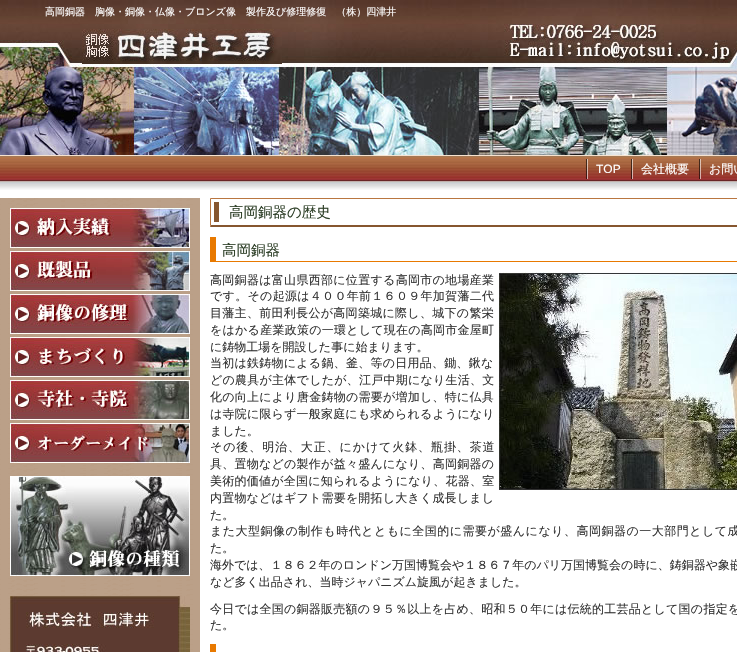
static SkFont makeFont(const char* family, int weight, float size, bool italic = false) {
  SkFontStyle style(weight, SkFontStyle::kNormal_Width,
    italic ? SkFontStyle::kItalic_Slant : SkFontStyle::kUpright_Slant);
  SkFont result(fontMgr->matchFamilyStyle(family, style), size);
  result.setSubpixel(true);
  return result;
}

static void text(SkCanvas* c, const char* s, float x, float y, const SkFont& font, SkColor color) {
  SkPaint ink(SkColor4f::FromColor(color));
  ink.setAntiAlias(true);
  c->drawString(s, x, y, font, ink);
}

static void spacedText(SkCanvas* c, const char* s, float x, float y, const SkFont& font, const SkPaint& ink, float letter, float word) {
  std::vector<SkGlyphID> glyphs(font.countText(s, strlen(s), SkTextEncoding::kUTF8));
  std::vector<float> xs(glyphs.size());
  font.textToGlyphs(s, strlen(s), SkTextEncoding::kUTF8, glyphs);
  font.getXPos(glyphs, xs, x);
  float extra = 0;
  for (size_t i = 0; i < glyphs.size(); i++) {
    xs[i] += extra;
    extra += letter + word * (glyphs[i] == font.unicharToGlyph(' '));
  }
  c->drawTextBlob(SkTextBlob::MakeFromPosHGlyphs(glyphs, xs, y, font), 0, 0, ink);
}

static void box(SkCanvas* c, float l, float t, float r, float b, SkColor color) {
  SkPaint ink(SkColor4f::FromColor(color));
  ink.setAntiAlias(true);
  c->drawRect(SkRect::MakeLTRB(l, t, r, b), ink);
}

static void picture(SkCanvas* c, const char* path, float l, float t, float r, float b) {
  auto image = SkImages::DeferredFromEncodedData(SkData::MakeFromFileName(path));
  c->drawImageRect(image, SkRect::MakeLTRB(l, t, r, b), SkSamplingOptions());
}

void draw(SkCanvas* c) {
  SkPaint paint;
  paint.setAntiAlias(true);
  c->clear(0xffffffff);
  picture(c, "img_01.png", 0, 155, 737, 190);
  picture(c, "img_02.png", 0, 0, 737, 155);
  SkFont face1 = makeFont("WenQuanYi Zen Hei", 500, 10);
  text(c, "高岡銅器　胸像・銅像・仏像・ブロンズ像　製作及び修理修復　（株）四津井", 45, 15, face1, 0xffffffff);
  picture(c, "img_03.png", 82, 29, 282, 64);
  picture(c, "img_04.png", 586, 159, 588, 179);
  SkFont face2 = makeFont("Liberation Sans", 400, 12);
  text(c, "TOP", 596, 173, face2, 0xffffffff);
  picture(c, "img_04.png", 631, 159, 633, 179);
  SkFont face3 = makeFont("WenQuanYi Zen Hei", 500, 12);
  text(c, "会社概要", 641, 173, face3, 0xffffffff);
  picture(c, "img_04.png", 699, 159, 701, 179);
  text(c, "お問い", 709, 173, face3, 0xffffffff);
  picture(c, "img_05.png", 0, 198, 200, 652);
  picture(c, "img_06.png", 10, 208, 190, 248);
  picture(c, "img_07.png", 10, 251, 190, 291);
  picture(c, "img_08.png", 10, 294, 190, 334);
  picture(c, "img_09.png", 10, 337, 190, 377);
  picture(c, "img_10.png", 10, 380, 190, 420);
  picture(c, "img_11.png", 10, 423, 190, 463);
  picture(c, "img_12.png", 10, 476, 190, 576);
  picture(c, "img_13.png", 10, 596, 190, 652);
  paint.setColor(0xffb97640);
  c->drawPath(SkPathBuilder().moveTo(210, 198).lineTo(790, 198).lineTo(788, 199).lineTo(211, 199).close().detach(), paint);
  paint.setColor(0xff86562f);
  c->drawPath(SkPathBuilder().moveTo(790, 227).lineTo(210, 227).lineTo(211, 225).lineTo(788, 225).close().detach(), paint);
  paint.setColor(0xffb97640);
  c->drawPath(SkPathBuilder().moveTo(210, 227).lineTo(210, 198).lineTo(211, 199).lineTo(211, 225).close().detach(), paint);
  box(c, 214, 202, 219, 222, 0xff86562f);
  SkFont face4 = makeFont("WenQuanYi Zen Hei", 500, 14.5f);
  text(c, "高岡銅器の歴史", 229, 217, face4, 0xff2c3e26);
  box(c, 210, 261, 737, 262, 0xffe87900);
  box(c, 210, 237, 216, 262, 0xffe87900);
  text(c, "高岡銅器", 222, 255, face4, 0xff2c3e26);
  picture(c, "img_14.png", 499, 272, 737, 490);
  paint.setColor(0xff333333);
  spacedText(c, "高岡銅器は富山県西部に位置する高岡市の地場産業", 210, 284, face3, paint, 0.3f, 0);
  spacedText(c, "です。その起源は４００年前１６０９年加賀藩二代", 210, 300, face3, paint, 0.3f, 0);
  spacedText(c, "目藩主、前田利長公が高岡築城に際し、城下の繁栄", 210, 317, face3, paint, 0.3f, 0);
  spacedText(c, "をはかる産業政策の一環として現在の高岡市金屋町", 210, 334, face3, paint, 0.25f, 0);
  text(c, "に鋳物工場を開設した事に始まります。", 210, 351, face3, 0xff333333);
  spacedText(c, "当初は鉄鋳物による鍋、釜、等の日用品、鋤、鍬な", 210, 367, face3, paint, 0.25f, 0);
  spacedText(c, "どの農具が主体でしたが、江戸中期になり生活、文", 210, 384, face3, paint, 0.25f, 0);
  spacedText(c, "化の向上により唐金鋳物の需要が増加し、特に仏具", 210, 401, face3, paint, 0.25f, 0);
  spacedText(c, "は寺院に限らず一般家庭にも求められるようになり", 210, 418, face3, paint, 0.2f, 0);
  text(c, "ました。", 210, 435, face3, 0xff333333);
  spacedText(c, "その後、明治、大正、にかけて火鉢、瓶掛、茶道", 210, 451, face3, paint, 0.9f, 0);
  spacedText(c, "具、置物などの製作が益々盛んになり、高岡銅器の", 210, 468, face3, paint, 0.25f, 0);
  spacedText(c, "美術的価値が全国に知られるようになり、花器、室", 210, 485, face3, paint, 0.25f, 0);
  spacedText(c, "内置物などはギフト需要を開拓し大きく成長しまし", 210, 502, face3, paint, 0.2f, 0);
  text(c, "た。", 210, 519, face3, 0xff333333);
  spacedText(c, "また大型銅像の制作も時代とともに全国的に需要が盛んになり、高岡銅器の一大部門として成", 210, 535, face3, paint, 0.5f, 0);
  text(c, "た。", 210, 552, face3, 0xff333333);
  text(c, "海外では、１８６２年のロンドン万国博覧会や１８６７年のパリ万国博覧会の時に、鋳銅器や象嵌", 210, 569, face3, 0xff333333);
  text(c, "など多く出品され、当時ジャパニズム旋風が起きました。", 210, 586, face3, 0xff333333);
  spacedText(c, "今日では全国の銅器販売額の９５％以上を占め、昭和５０年には伝統的工芸品として国の指定を", 210, 613, face3, paint, 0.25f, 0);
  text(c, "た。", 210, 629, face3, 0xff333333);
  box(c, 210, 644, 216, 652, 0xffe87900);
}
